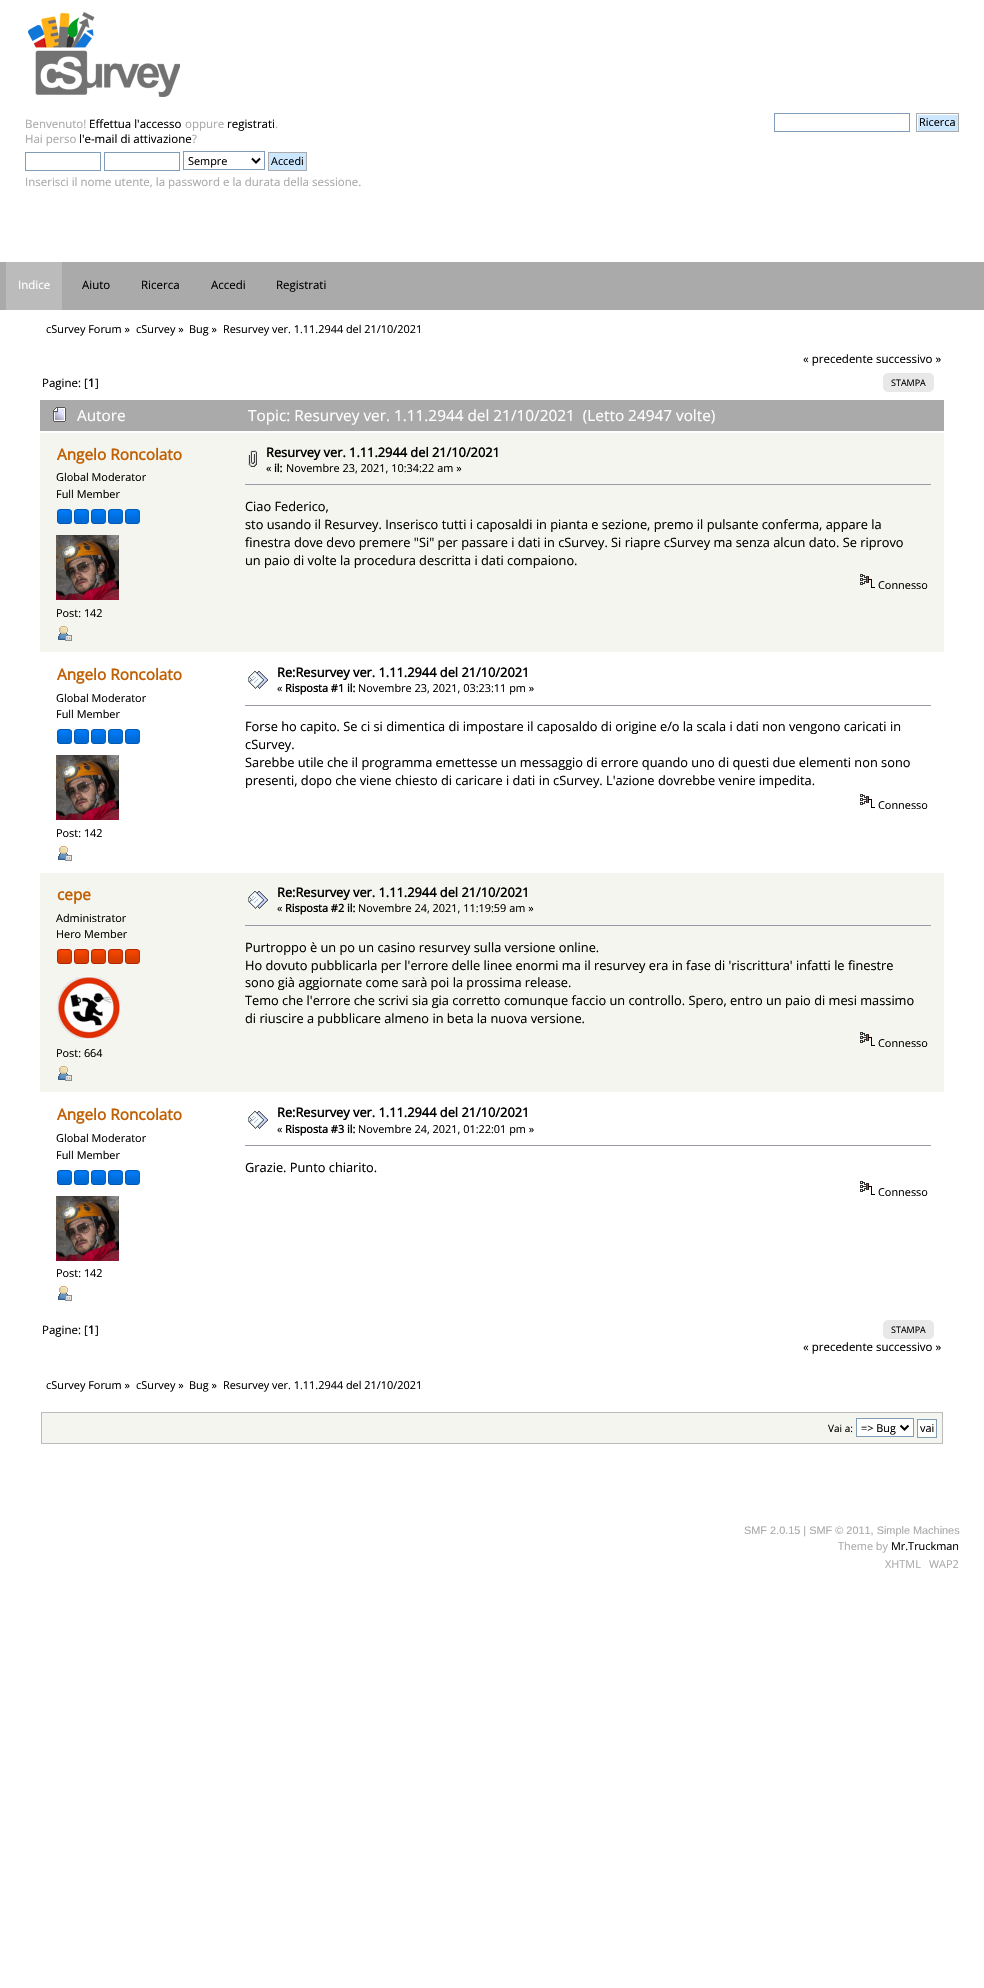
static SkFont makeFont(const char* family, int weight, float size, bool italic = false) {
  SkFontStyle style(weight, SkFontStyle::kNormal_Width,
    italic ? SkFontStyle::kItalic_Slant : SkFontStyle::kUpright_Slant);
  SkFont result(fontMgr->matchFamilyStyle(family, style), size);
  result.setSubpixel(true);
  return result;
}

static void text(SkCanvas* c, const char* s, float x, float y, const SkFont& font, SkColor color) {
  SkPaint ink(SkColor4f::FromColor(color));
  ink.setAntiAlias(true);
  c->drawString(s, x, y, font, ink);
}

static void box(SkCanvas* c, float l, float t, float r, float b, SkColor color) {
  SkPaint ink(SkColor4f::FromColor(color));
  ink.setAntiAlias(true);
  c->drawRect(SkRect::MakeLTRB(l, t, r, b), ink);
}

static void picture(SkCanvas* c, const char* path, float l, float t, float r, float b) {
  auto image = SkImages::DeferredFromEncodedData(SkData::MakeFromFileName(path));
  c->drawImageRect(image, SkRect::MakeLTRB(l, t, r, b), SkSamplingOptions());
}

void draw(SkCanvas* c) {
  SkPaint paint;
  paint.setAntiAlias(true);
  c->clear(0xffffffff);
  picture(c, "img_01.png", 28, 12, 180, 97);
  SkFont face1 = makeFont("Open Sans", 400, 11.5f);
  text(c, "Benvenuto!", 25, 128, face1, 0xffaaaaaa);
  text(c, "Effettua l'accesso", 89, 128, face1, 0xff000000);
  text(c, "oppure", 185, 128, face1, 0xffaaaaaa);
  text(c, "registrati", 227, 128, face1, 0xff000000);
  text(c, ".", 275, 128, face1, 0xffaaaaaa);
  text(c, "Hai perso", 25, 143, face1, 0xffaaaaaa);
  text(c, "l'e-mail di attivazione", 79, 143, face1, 0xff000000);
  text(c, "?", 192, 143, face1, 0xffaaaaaa);
  paint.setStyle(SkPaint::kStroke_Style);
  paint.setStrokeWidth(1);
  paint.setColor(0xff7f9db9);
  c->drawRect(SkRect::MakeLTRB(25.5f, 152.5f, 100.5f, 170.5f), paint);
  c->drawRect(SkRect::MakeLTRB(104.5f, 152.5f, 179.5f, 170.5f), paint);
  c->drawRect(SkRect::MakeLTRB(183.5f, 151.5f, 264.5f, 169.5f), paint);
  paint.setStrokeWidth(2);
  paint.setColor(0xff000000);
  c->drawPath(SkPathBuilder().moveTo(252, 158.5f).lineTo(256, 162.5f).lineTo(260, 158.5f).detach(), paint);
  SkFont face2 = makeFont("Open Sans", 400, 10.9f);
  text(c, "Sempre", 188, 165, face2, 0xff000000);
  paint.setStyle(SkPaint::kFill_Style);
  paint.setColor(0xffcde7ff);
  c->drawRect(SkRect::MakeLTRB(268.5f, 152.5f, 306.5f, 170.5f), paint);
  paint.setStyle(SkPaint::kStroke_Style);
  paint.setStrokeWidth(1);
  paint.setColor(0xffaaaaaa);
  c->drawRect(SkRect::MakeLTRB(268.5f, 152.5f, 306.5f, 170.5f), paint);
  text(c, "Accedi", 271, 165, face2, 0xff000000);
  text(c, "Inserisci il nome utente, la password e la durata della sessione.", 25, 186, face1, 0xffaaaaaa);
  paint.setColor(0xff7f9db9);
  c->drawRect(SkRect::MakeLTRB(774.5f, 113.5f, 909.5f, 131.5f), paint);
  picture(c, "img_02.png", 917, 114, 958, 131);
  paint.setColor(0xffaaaaaa);
  c->drawRect(SkRect::MakeLTRB(916.5f, 113.5f, 958.5f, 131.5f), paint);
  text(c, "Ricerca", 919, 126, face2, 0xff000000);
  box(c, 0, 262, 984, 310, 0xffaaaaaa);
  box(c, 6, 262, 62, 310, 0xffbbbbbb);
  text(c, "Indice", 18, 289, face1, 0xffffffff);
  text(c, "Aiuto", 82, 289, face1, 0xff000000);
  text(c, "Ricerca", 141, 289, face1, 0xff000000);
  text(c, "Accedi", 211, 289, face1, 0xff000000);
  text(c, "Registrati", 276, 289, face1, 0xff000000);
  text(c, "cSurvey Forum »", 46, 333, face2, 0xff000000);
  text(c, "cSurvey »", 136, 333, face2, 0xff000000);
  text(c, "Bug »", 189, 333, face2, 0xff000000);
  text(c, "Resurvey ver. 1.11.2944 del 21/10/2021", 223, 333, face2, 0xff000000);
  text(c, "« precedente successivo »", 803, 363, face1, 0xff000000);
  text(c, "Pagine: [", 42, 387, face1, 0xff000000);
  SkFont face3 = makeFont("Open Sans", 700, 11.5f);
  text(c, "1", 88, 387, face3, 0xff000000);
  text(c, "]", 95, 387, face1, 0xff000000);
  box(c, 887, 373, 930, 392, 0xffe8e8e8);
  picture(c, "img_03.png", 883, 373, 887, 392);
  picture(c, "img_04.png", 930, 373, 934, 392);
  SkFont face4 = makeFont("Open Sans", 400, 9);
  text(c, "STAMPA", 891, 386, face4, 0xff000000);
  box(c, 40, 400, 944, 431, 0xffaaaaaa);
  picture(c, "img_05.png", 53, 407, 66, 422);
  SkFont face5 = makeFont("Open Sans", 400, 15.35f);
  text(c, "Autore", 77, 421, face5, 0xffffffff);
  text(c, "Topic: Resurvey ver. 1.11.2944 del 21/10/2021  (Letto 24947 volte)", 248, 421, face5, 0xffffffff);
  box(c, 40, 433, 944, 652, 0xfff5f5f0);
  SkFont face6 = makeFont("Open Sans", 700, 15.35f);
  text(c, "Angelo Roncolato", 57, 460, face6, 0xffc06002);
  text(c, "Global Moderator", 56, 481, face2, 0xff000000);
  text(c, "Full Member", 56, 498, face2, 0xff000000);
  picture(c, "img_06.png", 57, 509, 72, 524);
  picture(c, "img_06.png", 74, 509, 89, 524);
  picture(c, "img_06.png", 91, 509, 106, 524);
  picture(c, "img_06.png", 108, 509, 123, 524);
  picture(c, "img_06.png", 125, 509, 140, 524);
  picture(c, "img_07.png", 56, 535, 119, 600);
  text(c, "Post: 142", 56, 617, face2, 0xff000000);
  picture(c, "img_08.png", 58, 626, 72, 641);
  picture(c, "img_09.png", 248, 450, 257, 467);
  SkFont face7 = makeFont("Open Sans", 700, 12.8f);
  text(c, "Resurvey ver. 1.11.2944 del 21/10/2021", 266, 457, face7, 0xff000000);
  text(c, "«", 266, 472, face2, 0xff000000);
  SkFont face8 = makeFont("Open Sans", 700, 10.9f);
  text(c, "il:", 274, 472, face8, 0xff000000);
  text(c, "Novembre 23, 2021, 10:34:22 am »", 286, 472, face2, 0xff000000);
  box(c, 245, 484, 931, 485, 0xff9999aa);
  SkFont face9 = makeFont("Open Sans", 400, 12.8f);
  text(c, "Ciao Federico,", 245, 511, face9, 0xff000000);
  text(c, "sto usando il Resurvey. Inserisco tutti i caposaldi in pianta e sezione, premo il pulsante conferma, appare la", 245, 529, face9, 0xff000000);
  text(c, "finestra dove devo premere \"Si\" per passare i dati in cSurvey. Si riapre cSurvey ma senza alcun dato. Se riprovo", 245, 547, face9, 0xff000000);
  text(c, "un paio di volte la procedura descritta i dati compaiono.", 245, 565, face9, 0xff000000);
  picture(c, "img_10.png", 860, 574, 875, 588);
  text(c, "Connesso", 878, 589, face2, 0xff000000);
  text(c, "Angelo Roncolato", 57, 680, face6, 0xffc06002);
  text(c, "Global Moderator", 56, 702, face2, 0xff000000);
  text(c, "Full Member", 56, 718, face2, 0xff000000);
  picture(c, "img_11.png", 57, 729, 72, 744);
  picture(c, "img_11.png", 74, 729, 89, 744);
  picture(c, "img_11.png", 91, 729, 106, 744);
  picture(c, "img_11.png", 108, 729, 123, 744);
  picture(c, "img_11.png", 125, 729, 140, 744);
  picture(c, "img_07.png", 56, 755, 119, 820);
  text(c, "Post: 142", 56, 837, face2, 0xff000000);
  picture(c, "img_12.png", 58, 846, 72, 861);
  picture(c, "img_13.png", 248, 671, 268, 689);
  text(c, "Re:Resurvey ver. 1.11.2944 del 21/10/2021", 277, 677, face7, 0xff000000);
  text(c, "«", 277, 692, face2, 0xff000000);
  text(c, "Risposta #1 il:", 285, 692, face8, 0xff000000);
  text(c, "Novembre 23, 2021, 03:23:11 pm »", 358, 692, face2, 0xff000000);
  box(c, 245, 705, 931, 706, 0xff9999aa);
  text(c, "Forse ho capito. Se ci si dimentica di impostare il caposaldo di origine e/o la scala i dati non vengono caricati in", 245, 731, face9, 0xff000000);
  text(c, "cSurvey.", 245, 749, face9, 0xff000000);
  text(c, "Sarebbe utile che il programma emettesse un messaggio di errore quando uno di questi due elementi non sono", 245, 767, face9, 0xff000000);
  text(c, "presenti, dopo che viene chiesto di caricare i dati in cSurvey. L'azione dovrebbe venire impedita.", 245, 785, face9, 0xff000000);
  picture(c, "img_14.png", 860, 794, 875, 808);
  text(c, "Connesso", 878, 809, face2, 0xff000000);
  box(c, 40, 873, 944, 1092, 0xfff5f5f0);
  text(c, "cepe", 57, 900, face6, 0xffc06002);
  text(c, "Administrator", 56, 922, face2, 0xff000000);
  text(c, "Hero Member", 56, 938, face2, 0xff000000);
  picture(c, "img_15.png", 57, 949, 72, 964);
  picture(c, "img_15.png", 74, 949, 89, 964);
  picture(c, "img_15.png", 91, 949, 106, 964);
  picture(c, "img_15.png", 108, 949, 123, 964);
  picture(c, "img_15.png", 125, 949, 140, 964);
  picture(c, "img_16.png", 56, 976, 121, 1040);
  text(c, "Post: 664", 56, 1057, face2, 0xff000000);
  picture(c, "img_08.png", 58, 1066, 72, 1081);
  picture(c, "img_17.png", 248, 891, 268, 909);
  text(c, "Re:Resurvey ver. 1.11.2944 del 21/10/2021", 277, 897, face7, 0xff000000);
  text(c, "«", 277, 912, face2, 0xff000000);
  text(c, "Risposta #2 il:", 285, 912, face8, 0xff000000);
  text(c, "Novembre 24, 2021, 11:19:59 am »", 358, 912, face2, 0xff000000);
  box(c, 245, 925, 931, 926, 0xff9999aa);
  text(c, "Purtroppo è un po un casino resurvey sulla versione online.", 245, 952, face9, 0xff000000);
  text(c, "Ho dovuto pubblicarla per l'errore delle linee enormi ma il resurvey era in fase di 'riscrittura' infatti le finestre", 245, 970, face9, 0xff000000);
  text(c, "sono già aggiornate come sarà poi la prossima release.", 245, 987, face9, 0xff000000);
  text(c, "Temo che l'errore che scrivi sia gia corretto comunque faccio un controllo. Spero, entro un paio di mesi massimo", 245, 1005, face9, 0xff000000);
  text(c, "di riuscire a pubblicare almeno in beta la nuova versione.", 245, 1023, face9, 0xff000000);
  picture(c, "img_10.png", 860, 1032, 875, 1046);
  text(c, "Connesso", 878, 1047, face2, 0xff000000);
  text(c, "Angelo Roncolato", 57, 1120, face6, 0xffc06002);
  text(c, "Global Moderator", 56, 1142, face2, 0xff000000);
  text(c, "Full Member", 56, 1159, face2, 0xff000000);
  picture(c, "img_11.png", 57, 1170, 72, 1185);
  picture(c, "img_11.png", 74, 1170, 89, 1185);
  picture(c, "img_11.png", 91, 1170, 106, 1185);
  picture(c, "img_11.png", 108, 1170, 123, 1185);
  picture(c, "img_11.png", 125, 1170, 140, 1185);
  picture(c, "img_07.png", 56, 1196, 119, 1261);
  text(c, "Post: 142", 56, 1277, face2, 0xff000000);
  picture(c, "img_12.png", 58, 1286, 72, 1301);
  picture(c, "img_13.png", 248, 1111, 268, 1129);
  text(c, "Re:Resurvey ver. 1.11.2944 del 21/10/2021", 277, 1117, face7, 0xff000000);
  text(c, "«", 277, 1133, face2, 0xff000000);
  text(c, "Risposta #3 il:", 285, 1133, face8, 0xff000000);
  text(c, "Novembre 24, 2021, 01:22:01 pm »", 358, 1133, face2, 0xff000000);
  box(c, 245, 1145, 931, 1146, 0xff9999aa);
  text(c, "Grazie. Punto chiarito.", 245, 1172, face9, 0xff000000);
  picture(c, "img_14.png", 860, 1181, 875, 1195);
  text(c, "Connesso", 878, 1196, face2, 0xff000000);
  text(c, "Pagine: [", 42, 1334, face1, 0xff000000);
  text(c, "1", 88, 1334, face3, 0xff000000);
  text(c, "]", 95, 1334, face1, 0xff000000);
  box(c, 887, 1320, 930, 1339, 0xffe8e8e8);
  picture(c, "img_03.png", 883, 1320, 887, 1339);
  picture(c, "img_04.png", 930, 1320, 934, 1339);
  text(c, "STAMPA", 891, 1333, face4, 0xff000000);
  text(c, "« precedente successivo »", 803, 1351, face1, 0xff000000);
  text(c, "cSurvey Forum »", 46, 1389, face2, 0xff000000);
  text(c, "cSurvey »", 136, 1389, face2, 0xff000000);
  text(c, "Bug »", 189, 1389, face2, 0xff000000);
  text(c, "Resurvey ver. 1.11.2944 del 21/10/2021", 223, 1389, face2, 0xff000000);
  paint.setStyle(SkPaint::kFill_Style);
  paint.setColor(0xfff5f5f0);
  c->drawRect(SkRect::MakeLTRB(41.5f, 1412.5f, 942.5f, 1443.5f), paint);
  paint.setStyle(SkPaint::kStroke_Style);
  paint.setColor(0xffbbbbbb);
  c->drawRect(SkRect::MakeLTRB(41.5f, 1412.5f, 942.5f, 1443.5f), paint);
  SkFont face10 = makeFont("Open Sans", 400, 10);
  text(c, "Vai a:", 828, 1432, face10, 0xff000000);
  paint.setStyle(SkPaint::kFill_Style);
  paint.setColor(0xffffffff);
  c->drawRect(SkRect::MakeLTRB(856.5f, 1418.5f, 913.5f, 1436.5f), paint);
  paint.setStyle(SkPaint::kStroke_Style);
  paint.setColor(0xff7f9db9);
  c->drawRect(SkRect::MakeLTRB(856.5f, 1418.5f, 913.5f, 1436.5f), paint);
  paint.setStrokeWidth(2);
  paint.setColor(0xff000000);
  c->drawPath(SkPathBuilder().moveTo(900.5f, 1425.5f).lineTo(904.5f, 1429.5f).lineTo(908.5f, 1425.5f).detach(), paint);
  text(c, "=> Bug", 861, 1432, face2, 0xff000000);
  paint.setStyle(SkPaint::kFill_Style);
  paint.setColor(0xffffffff);
  c->drawRect(SkRect::MakeLTRB(917.5f, 1419.5f, 936.5f, 1437.5f), paint);
  paint.setStyle(SkPaint::kStroke_Style);
  paint.setStrokeWidth(1);
  paint.setColor(0xff7f9db9);
  c->drawRect(SkRect::MakeLTRB(917.5f, 1419.5f, 936.5f, 1437.5f), paint);
  text(c, "vai", 920, 1432, face2, 0xff000000);
  SkFont face11 = makeFont("Liberation Sans", 400, 10.9f);
  text(c, "SMF 2.0.15 | SMF © 2011, Simple Machines", 744, 1534, face11, 0xffaaaaaa);
  text(c, "Theme by", 838, 1550, face2, 0xffaaaaaa);
  text(c, "Mr.Truckman", 891, 1550, face2, 0xff000000);
  text(c, "XHTML", 885, 1568, face2, 0xffaaaaaa);
  text(c, "WAP2", 929, 1568, face2, 0xffaaaaaa);
}
